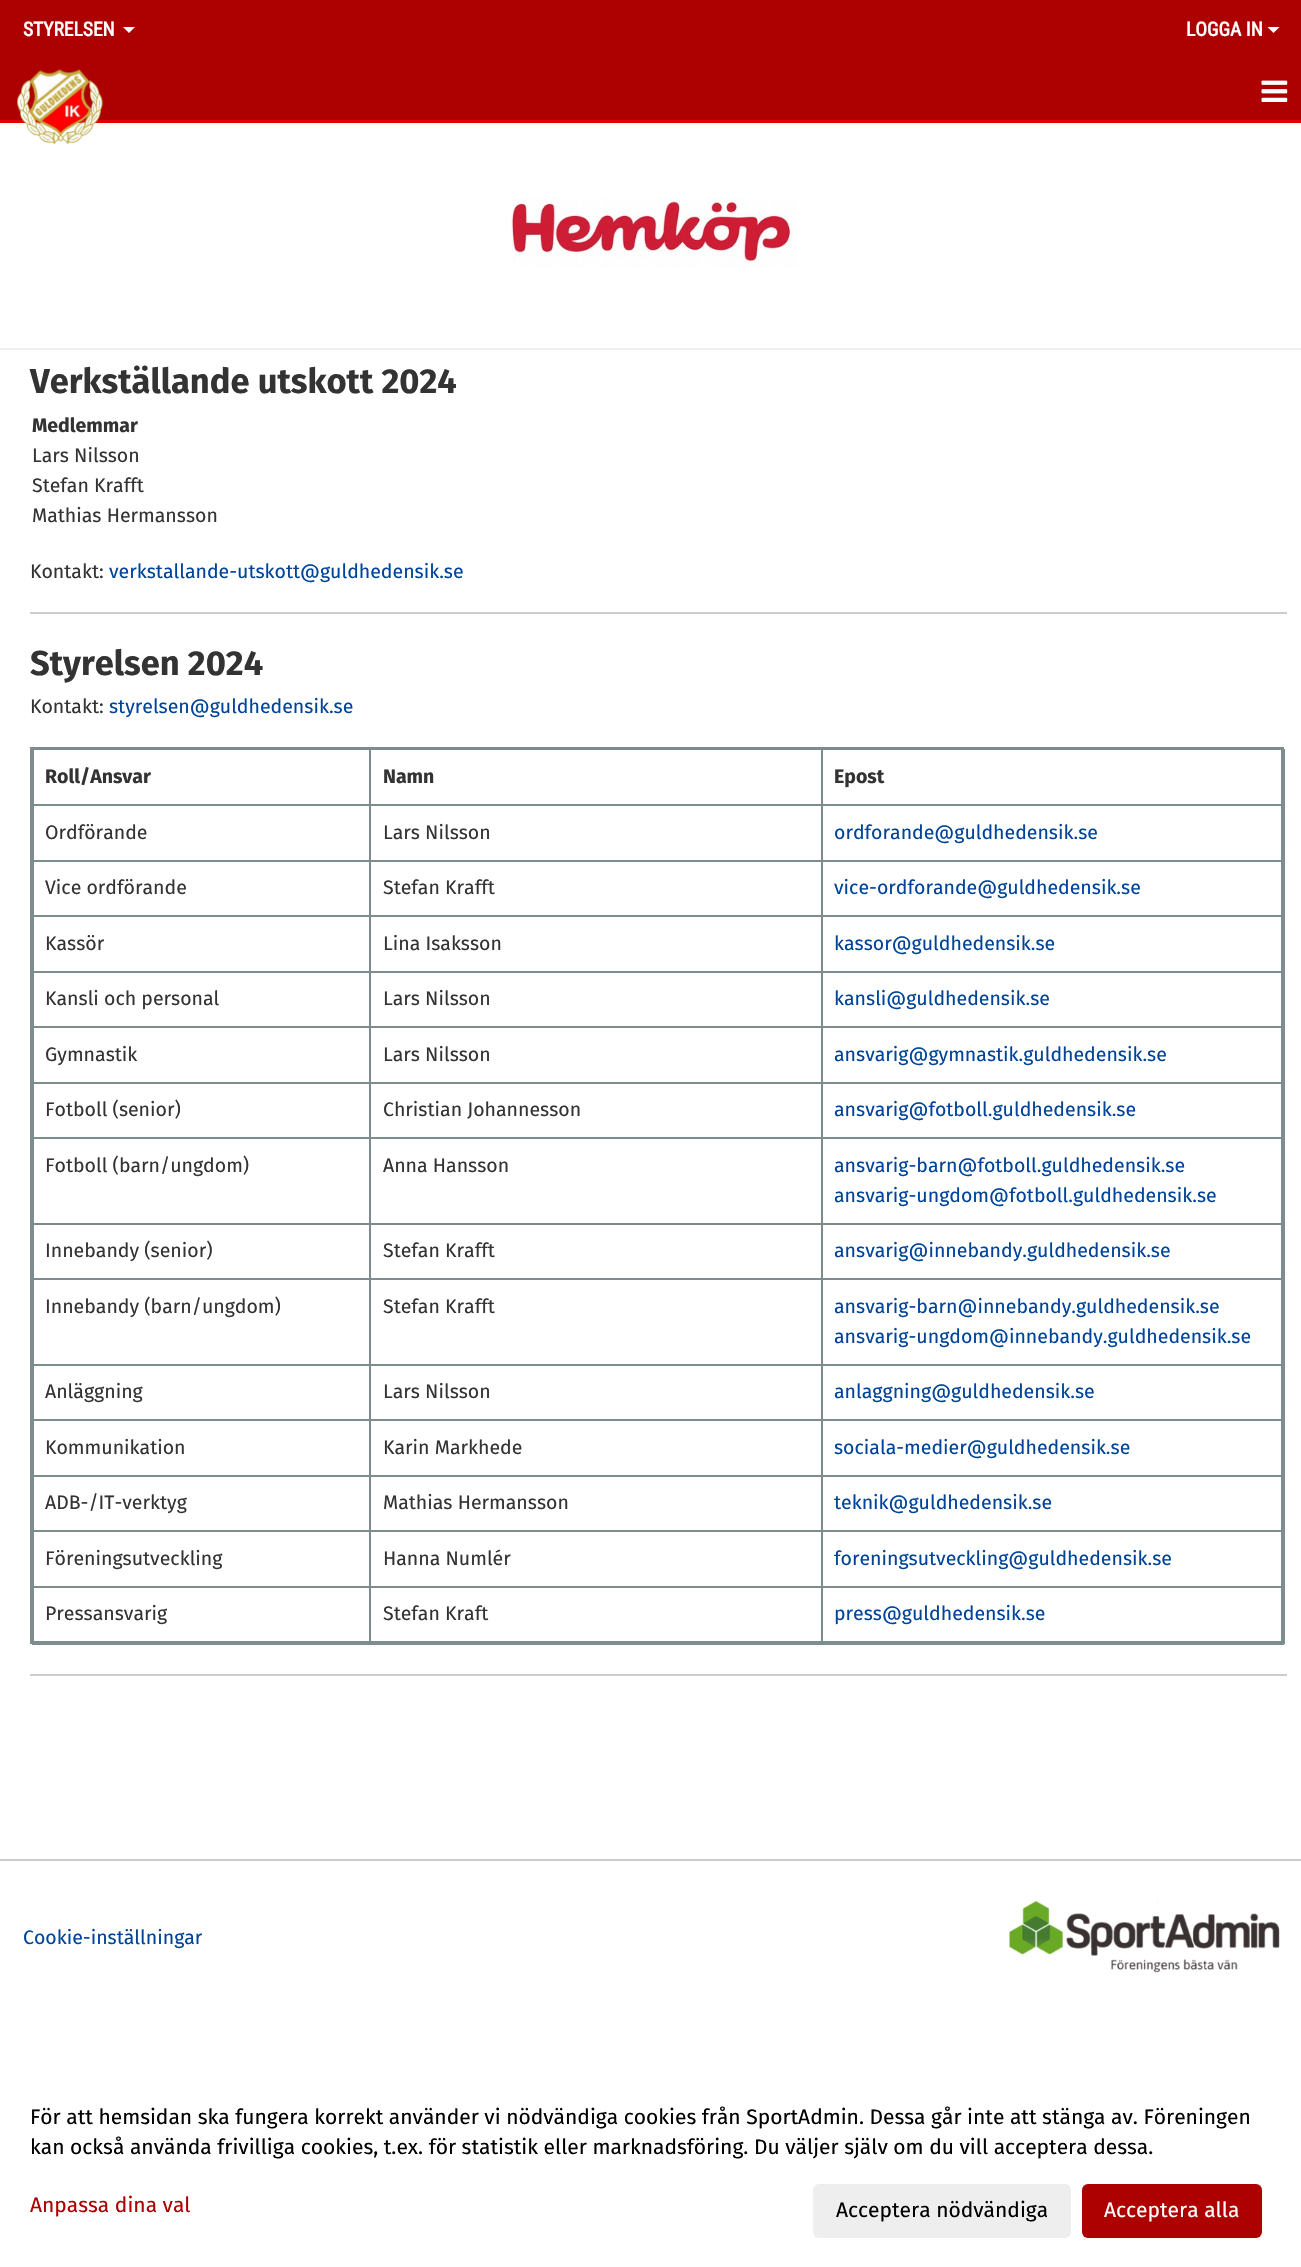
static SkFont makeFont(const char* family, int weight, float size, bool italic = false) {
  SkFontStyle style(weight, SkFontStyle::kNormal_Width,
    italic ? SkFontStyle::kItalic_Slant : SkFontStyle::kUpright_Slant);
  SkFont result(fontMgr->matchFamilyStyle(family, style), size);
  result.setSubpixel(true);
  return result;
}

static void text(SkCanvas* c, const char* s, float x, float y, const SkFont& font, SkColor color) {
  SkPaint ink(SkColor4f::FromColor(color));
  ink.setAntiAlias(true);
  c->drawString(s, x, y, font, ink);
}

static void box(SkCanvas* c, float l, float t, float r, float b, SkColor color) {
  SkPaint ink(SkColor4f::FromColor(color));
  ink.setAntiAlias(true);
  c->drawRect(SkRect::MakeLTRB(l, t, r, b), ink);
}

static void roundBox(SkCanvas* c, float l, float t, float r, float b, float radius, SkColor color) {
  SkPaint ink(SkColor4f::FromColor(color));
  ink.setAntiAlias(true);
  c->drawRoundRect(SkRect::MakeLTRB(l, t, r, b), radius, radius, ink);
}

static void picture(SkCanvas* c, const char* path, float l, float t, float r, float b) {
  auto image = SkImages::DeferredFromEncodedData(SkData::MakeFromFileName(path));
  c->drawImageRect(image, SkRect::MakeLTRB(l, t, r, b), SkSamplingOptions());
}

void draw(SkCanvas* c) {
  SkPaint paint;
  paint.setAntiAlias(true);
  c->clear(0xffffffff);
  box(c, 0, 0, 1301, 120, 0xffad0001);
  SkFont face1 = makeFont("Roboto Condensed", 700, 19.5f);
  text(c, "STYRELSEN", 23, 36, face1, 0xffffffff);
  paint.setColor(0xffffffff);
  c->drawPath(SkPathBuilder().moveTo(123, 27).lineTo(135, 27).lineTo(129, 33).close().detach(), paint);
  text(c, "LOGGA IN", 1186, 36, face1, 0xffffffff);
  c->drawPath(SkPathBuilder().moveTo(1267.5f, 27).lineTo(1279.5f, 27).lineTo(1273.5f, 33).close().detach(), paint);
  box(c, 0, 120, 1301, 123, 0xffe30001);
  picture(c, "img_01.png", 17, 69, 104, 145);
  picture(c, "img_02.png", 1261, 80, 1288, 102);
  picture(c, "img_03.png", 511, 198, 798, 268);
  box(c, 0, 348, 1301, 350, 0xffeeeeee);
  SkFont face2 = makeFont("Fira Sans", 700, 34.5f);
  text(c, "Verkställande utskott 2024", 30, 393, face2, 0xff333333);
  SkFont face3 = makeFont("Fira Sans", 700, 19.5f);
  text(c, "Medlemmar", 32, 432, face3, 0xff333333);
  SkFont face4 = makeFont("Fira Sans", 400, 19.5f);
  text(c, "Lars Nilsson", 32, 462, face4, 0xff333333);
  text(c, "Stefan Krafft", 32, 492, face4, 0xff333333);
  text(c, "Mathias Hermansson", 32, 522, face4, 0xff333333);
  text(c, "Kontakt:", 30, 578, face4, 0xff333333);
  text(c, "verkstallande-utskott@guldhedensik.se", 109, 578, face4, 0xff004499);
  box(c, 30, 612, 1287, 614, 0xffcccccc);
  text(c, "Styrelsen 2024", 30, 675, face2, 0xff333333);
  text(c, "Kontakt:", 30, 713, face4, 0xff333333);
  text(c, "styrelsen@guldhedensik.se", 109, 713, face4, 0xff004499);
  box(c, 821, 1586, 823, 1644, 0xff7e8c8d);
  box(c, 821, 1586, 1284, 1588, 0xff7e8c8d);
  box(c, 821, 1530, 823, 1587, 0xff7e8c8d);
  box(c, 821, 1530, 1284, 1532, 0xff7e8c8d);
  box(c, 821, 1475, 823, 1532, 0xff7e8c8d);
  box(c, 821, 1475, 1284, 1477, 0xff7e8c8d);
  box(c, 821, 1419, 823, 1476, 0xff7e8c8d);
  box(c, 821, 1419, 1284, 1421, 0xff7e8c8d);
  box(c, 821, 1364, 823, 1421, 0xff7e8c8d);
  box(c, 821, 1364, 1284, 1366, 0xff7e8c8d);
  box(c, 821, 1278, 823, 1365, 0xff7e8c8d);
  box(c, 821, 1278, 1284, 1280, 0xff7e8c8d);
  box(c, 821, 1223, 823, 1280, 0xff7e8c8d);
  box(c, 821, 1223, 1284, 1225, 0xff7e8c8d);
  box(c, 821, 1137, 823, 1224, 0xff7e8c8d);
  box(c, 821, 1137, 1284, 1139, 0xff7e8c8d);
  box(c, 821, 1082, 823, 1139, 0xff7e8c8d);
  box(c, 821, 1082, 1284, 1084, 0xff7e8c8d);
  box(c, 821, 1026, 823, 1083, 0xff7e8c8d);
  box(c, 821, 1026, 1284, 1028, 0xff7e8c8d);
  box(c, 821, 971, 823, 1028, 0xff7e8c8d);
  box(c, 821, 971, 1284, 973, 0xff7e8c8d);
  box(c, 821, 915, 823, 972, 0xff7e8c8d);
  box(c, 821, 915, 1284, 917, 0xff7e8c8d);
  box(c, 821, 860, 823, 917, 0xff7e8c8d);
  box(c, 821, 860, 1284, 862, 0xff7e8c8d);
  box(c, 821, 804, 823, 861, 0xff7e8c8d);
  box(c, 821, 804, 1284, 806, 0xff7e8c8d);
  box(c, 821, 749, 823, 806, 0xff7e8c8d);
  box(c, 369, 1586, 371, 1644, 0xff7e8c8d);
  box(c, 369, 1586, 822, 1588, 0xff7e8c8d);
  box(c, 369, 1530, 371, 1587, 0xff7e8c8d);
  box(c, 369, 1530, 822, 1532, 0xff7e8c8d);
  box(c, 369, 1475, 371, 1532, 0xff7e8c8d);
  box(c, 369, 1475, 822, 1477, 0xff7e8c8d);
  box(c, 369, 1419, 371, 1476, 0xff7e8c8d);
  box(c, 369, 1419, 822, 1421, 0xff7e8c8d);
  box(c, 369, 1364, 371, 1421, 0xff7e8c8d);
  box(c, 369, 1364, 822, 1366, 0xff7e8c8d);
  box(c, 369, 1278, 371, 1365, 0xff7e8c8d);
  box(c, 369, 1278, 822, 1280, 0xff7e8c8d);
  box(c, 369, 1223, 371, 1280, 0xff7e8c8d);
  box(c, 369, 1223, 822, 1225, 0xff7e8c8d);
  box(c, 369, 1137, 371, 1224, 0xff7e8c8d);
  box(c, 369, 1137, 822, 1139, 0xff7e8c8d);
  box(c, 369, 1082, 371, 1139, 0xff7e8c8d);
  box(c, 369, 1082, 822, 1084, 0xff7e8c8d);
  box(c, 369, 1026, 371, 1083, 0xff7e8c8d);
  box(c, 369, 1026, 822, 1028, 0xff7e8c8d);
  box(c, 369, 971, 371, 1028, 0xff7e8c8d);
  box(c, 369, 971, 822, 973, 0xff7e8c8d);
  box(c, 369, 915, 371, 972, 0xff7e8c8d);
  box(c, 369, 915, 822, 917, 0xff7e8c8d);
  box(c, 369, 860, 371, 917, 0xff7e8c8d);
  box(c, 369, 860, 822, 862, 0xff7e8c8d);
  box(c, 369, 804, 371, 861, 0xff7e8c8d);
  box(c, 369, 804, 822, 806, 0xff7e8c8d);
  box(c, 369, 749, 371, 806, 0xff7e8c8d);
  box(c, 33, 1586, 34, 1644, 0xff7e8c8d);
  box(c, 32, 1586, 371, 1588, 0xff7e8c8d);
  box(c, 33, 1530, 34, 1587, 0xff7e8c8d);
  box(c, 32, 1530, 371, 1532, 0xff7e8c8d);
  box(c, 33, 1475, 34, 1532, 0xff7e8c8d);
  box(c, 32, 1475, 371, 1477, 0xff7e8c8d);
  box(c, 33, 1419, 34, 1476, 0xff7e8c8d);
  box(c, 32, 1419, 371, 1421, 0xff7e8c8d);
  box(c, 33, 1364, 34, 1421, 0xff7e8c8d);
  box(c, 32, 1364, 371, 1366, 0xff7e8c8d);
  box(c, 33, 1278, 34, 1365, 0xff7e8c8d);
  box(c, 32, 1278, 371, 1280, 0xff7e8c8d);
  box(c, 33, 1223, 34, 1280, 0xff7e8c8d);
  box(c, 32, 1223, 371, 1225, 0xff7e8c8d);
  box(c, 33, 1137, 34, 1224, 0xff7e8c8d);
  box(c, 32, 1137, 371, 1139, 0xff7e8c8d);
  box(c, 33, 1082, 34, 1139, 0xff7e8c8d);
  box(c, 32, 1082, 371, 1084, 0xff7e8c8d);
  box(c, 33, 1026, 34, 1083, 0xff7e8c8d);
  box(c, 32, 1026, 371, 1028, 0xff7e8c8d);
  box(c, 33, 971, 34, 1028, 0xff7e8c8d);
  box(c, 32, 971, 371, 973, 0xff7e8c8d);
  box(c, 33, 915, 34, 972, 0xff7e8c8d);
  box(c, 32, 915, 371, 917, 0xff7e8c8d);
  box(c, 33, 860, 34, 917, 0xff7e8c8d);
  box(c, 32, 860, 371, 862, 0xff7e8c8d);
  box(c, 33, 804, 34, 861, 0xff7e8c8d);
  box(c, 32, 804, 371, 806, 0xff7e8c8d);
  box(c, 33, 749, 34, 806, 0xff7e8c8d);
  box(c, 30, 747, 1284, 750, 0xff7e8c8d);
  box(c, 1281, 747, 1284, 1644, 0xff7e8c8d);
  box(c, 30, 1641, 1284, 1644, 0xff7e8c8d);
  box(c, 30, 747, 33, 1644, 0xff7e8c8d);
  text(c, "Roll/Ansvar", 45, 783, face3, 0xff333333);
  text(c, "Namn", 383, 783, face3, 0xff333333);
  text(c, "Epost", 834, 783, face3, 0xff333333);
  text(c, "Ordförande", 45, 839, face4, 0xff333333);
  text(c, "Lars Nilsson", 383, 839, face4, 0xff333333);
  text(c, "ordforande@guldhedensik.se", 834, 839, face4, 0xff004499);
  text(c, "Vice ordförande", 45, 894, face4, 0xff333333);
  text(c, "Stefan Krafft", 383, 894, face4, 0xff333333);
  text(c, "vice-ordforande@guldhedensik.se", 834, 894, face4, 0xff004499);
  text(c, "Kassör", 45, 950, face4, 0xff333333);
  text(c, "Lina Isaksson", 383, 950, face4, 0xff333333);
  text(c, "kassor@guldhedensik.se", 834, 950, face4, 0xff004499);
  text(c, "Kansli och personal", 45, 1005, face4, 0xff333333);
  text(c, "Lars Nilsson", 383, 1005, face4, 0xff333333);
  text(c, "kansli@guldhedensik.se", 834, 1005, face4, 0xff004499);
  text(c, "Gymnastik", 45, 1061, face4, 0xff333333);
  text(c, "Lars Nilsson", 383, 1061, face4, 0xff333333);
  text(c, "ansvarig@gymnastik.guldhedensik.se", 834, 1061, face4, 0xff004499);
  text(c, "Fotboll (senior)", 45, 1116, face4, 0xff333333);
  text(c, "Christian Johannesson", 383, 1116, face4, 0xff333333);
  text(c, "ansvarig@fotboll.guldhedensik.se", 834, 1116, face4, 0xff004499);
  text(c, "Fotboll (barn/ungdom)", 45, 1172, face4, 0xff333333);
  text(c, "Anna Hansson", 383, 1172, face4, 0xff333333);
  text(c, "ansvarig-barn@fotboll.guldhedensik.se", 834, 1172, face4, 0xff004499);
  text(c, "ansvarig-ungdom@fotboll.guldhedensik.se", 834, 1202, face4, 0xff004499);
  text(c, "Innebandy (senior)", 45, 1257, face4, 0xff333333);
  text(c, "Stefan Krafft", 383, 1257, face4, 0xff333333);
  text(c, "ansvarig@innebandy.guldhedensik.se", 834, 1257, face4, 0xff004499);
  text(c, "Innebandy (barn/ungdom)", 45, 1313, face4, 0xff333333);
  text(c, "Stefan Krafft", 383, 1313, face4, 0xff333333);
  text(c, "ansvarig-barn@innebandy.guldhedensik.se", 834, 1313, face4, 0xff004499);
  text(c, "ansvarig-ungdom@innebandy.guldhedensik.se", 834, 1343, face4, 0xff004499);
  text(c, "Anläggning", 45, 1398, face4, 0xff333333);
  text(c, "Lars Nilsson", 383, 1398, face4, 0xff333333);
  text(c, "anlaggning@guldhedensik.se", 834, 1398, face4, 0xff004499);
  text(c, "Kommunikation", 45, 1454, face4, 0xff333333);
  text(c, "Karin Markhede", 383, 1454, face4, 0xff333333);
  text(c, "sociala-medier@guldhedensik.se", 834, 1454, face4, 0xff004499);
  text(c, "ADB-/IT-verktyg", 45, 1509, face4, 0xff333333);
  text(c, "Mathias Hermansson", 383, 1509, face4, 0xff333333);
  text(c, "teknik@guldhedensik.se", 834, 1509, face4, 0xff004499);
  text(c, "Föreningsutveckling", 45, 1565, face4, 0xff333333);
  text(c, "Hanna Numlér", 383, 1565, face4, 0xff333333);
  text(c, "foreningsutveckling@guldhedensik.se", 834, 1565, face4, 0xff004499);
  text(c, "Pressansvarig", 45, 1620, face4, 0xff333333);
  text(c, "Stefan Kraft", 383, 1620, face4, 0xff333333);
  box(c, 1284, 749, 1285, 1644, 0xff7e8c8d);
  box(c, 32, 1644, 1284, 1645, 0xff7e8c8d);
  text(c, "press@guldhedensik.se", 834, 1620, face4, 0xff004499);
  box(c, 30, 1674, 1287, 1676, 0xffcccccc);
  box(c, 0, 1859, 1301, 1861, 0xffcccccc);
  text(c, "Cookie-inställningar", 23, 1944, face4, 0xff004499);
  picture(c, "img_04.png", 1009, 1900, 1280, 1973);
  SkFont face5 = makeFont("Fira Sans", 400, 21);
  text(c, "För att hemsidan ska fungera korrekt använder vi nödvändiga cookies från SportAdmin. Dessa går inte att stänga av. Föreningen", 30, 2124, face5, 0xff000000);
  text(c, "kan också använda frivilliga cookies, t.ex. för statistik eller marknadsföring. Du väljer själv om du vill acceptera dessa.", 30, 2154, face5, 0xff000000);
  text(c, "Anpassa dina val", 30, 2212, face5, 0xffad0001);
  roundBox(c, 813, 2184, 1071, 2238, 6, 0xffeeeeee);
  text(c, "Acceptera nödvändiga", 836, 2217, face5, 0xff000000);
  roundBox(c, 1082, 2184, 1262, 2238, 6, 0xffad0001);
  text(c, "Acceptera alla", 1104, 2217, face5, 0xffffffff);
}
